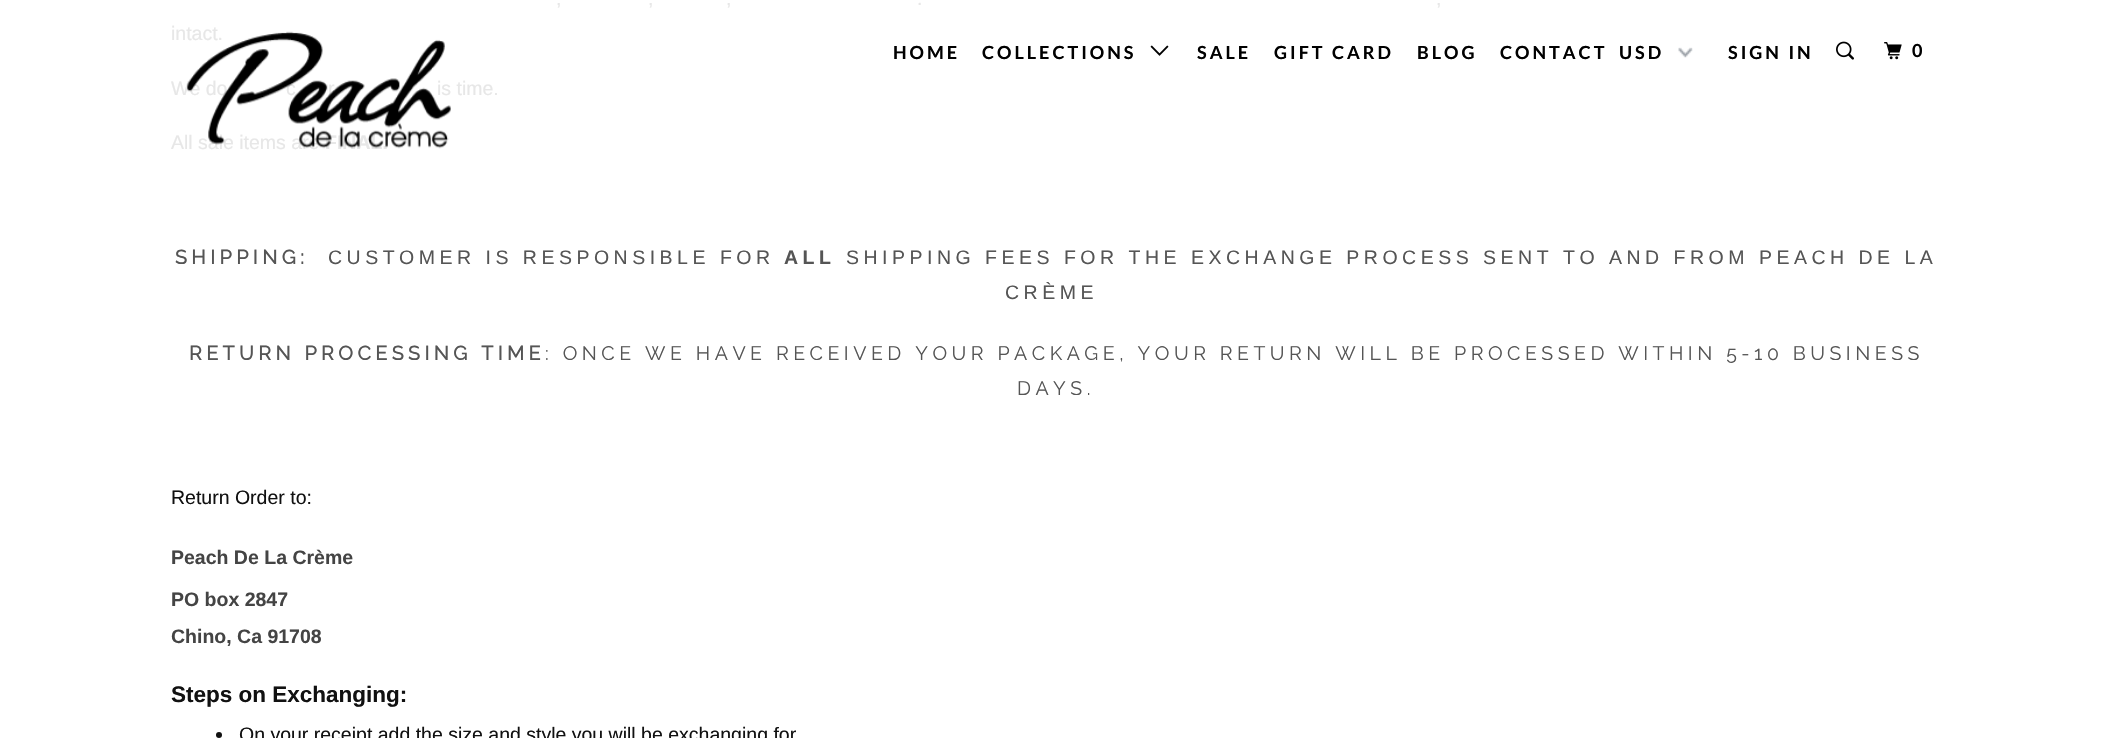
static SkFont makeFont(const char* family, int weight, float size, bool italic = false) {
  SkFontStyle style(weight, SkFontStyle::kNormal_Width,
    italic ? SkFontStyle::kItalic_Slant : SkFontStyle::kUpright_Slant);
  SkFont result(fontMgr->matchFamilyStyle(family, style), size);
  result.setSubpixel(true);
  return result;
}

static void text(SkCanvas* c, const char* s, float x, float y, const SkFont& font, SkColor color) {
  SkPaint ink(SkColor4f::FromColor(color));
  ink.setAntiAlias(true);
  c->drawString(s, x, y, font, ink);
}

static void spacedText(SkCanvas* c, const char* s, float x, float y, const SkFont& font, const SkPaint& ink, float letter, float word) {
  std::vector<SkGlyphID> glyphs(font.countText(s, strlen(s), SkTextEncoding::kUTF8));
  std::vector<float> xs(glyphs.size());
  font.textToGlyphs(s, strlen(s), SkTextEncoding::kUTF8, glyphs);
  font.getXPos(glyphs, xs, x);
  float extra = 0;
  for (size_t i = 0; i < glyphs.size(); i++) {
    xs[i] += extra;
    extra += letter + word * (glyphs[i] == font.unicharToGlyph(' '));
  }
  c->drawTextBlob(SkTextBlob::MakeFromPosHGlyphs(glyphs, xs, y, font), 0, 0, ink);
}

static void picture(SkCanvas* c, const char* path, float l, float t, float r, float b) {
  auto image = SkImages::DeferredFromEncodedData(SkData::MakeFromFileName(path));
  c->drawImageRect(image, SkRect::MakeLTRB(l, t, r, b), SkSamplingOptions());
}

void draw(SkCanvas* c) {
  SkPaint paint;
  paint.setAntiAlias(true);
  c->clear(0xffffffff);
  SkFont face1 = makeFont("Liberation Sans", 400, 19.5f);
  text(c, ",", 556, 5, face1, 0xffe7e7e7);
  text(c, ",", 648, 5, face1, 0xffe7e7e7);
  text(c, ",", 726, 5, face1, 0xffe7e7e7);
  text(c, ".", 917, 5, face1, 0xffe7e7e7);
  text(c, ",", 1436, 5, face1, 0xffe7e7e7);
  text(c, "intact.", 171, 40, face1, 0xffe7e7e7);
  text(c, "We do", 171, 95, face1, 0xffe7e7e7);
  text(c, "c", 286, 95, face1, 0xffe7e7e7);
  text(c, "r", 328, 95, face1, 0xffe7e7e7);
  text(c, "is time.", 437, 95, face1, 0xffe7e7e7);
  text(c, "All sale items are", 171, 149, face1, 0xffe7e7e7);
  SkFont face2 = makeFont("Liberation Sans", 700, 19.5f);
  text(c, "FINAL.", 325, 149, face2, 0xffe7e7e7);
  SkFont face3 = makeFont("Raleway", 700, 19.5f);
  paint.setColor(0xff555555);
  spacedText(c, "SHIPPING:", 175, 264, face3, paint, 4.5f, 0);
  spacedText(c, "CUSTOMER IS RESPONSIBLE FOR", 328, 264, face1, paint, 4.5f, 0);
  spacedText(c, "ALL", 784, 264, face2, paint, 4.5f, 0);
  spacedText(c, "SHIPPING FEES FOR THE EXCHANGE PROCESS SENT TO AND FROM PEACH DE LA", 846, 264, face1, paint, 4.5f, 0);
  spacedText(c, "CRÈME", 1005, 299, face1, paint, 4.5f, 0);
  spacedText(c, "RETURN PROCESSING TIME", 189, 360, face3, paint, 4.5f, 0);
  SkFont face4 = makeFont("Raleway", 100, 19.5f);
  spacedText(c, ": ONCE WE HAVE RECEIVED YOUR PACKAGE, YOUR RETURN WILL BE PROCESSED WITHIN 5-10 BUSINESS", 545, 360, face4, paint, 4.5f, 0);
  spacedText(c, "DAYS.", 1017, 395, face4, paint, 4.5f, 0);
  text(c, "Return Order to:", 171, 504, face1, 0xff111111);
  text(c, "Peach De La Crème", 171, 564, face2, 0xff444444);
  text(c, "PO box 2847", 171, 606, face2, 0xff444444);
  text(c, "Chino, Ca 91708", 171, 643, face2, 0xff444444);
  SkFont face5 = makeFont("Liberation Sans", 700, 22.5f);
  text(c, "Steps on Exchanging:", 171, 702, face5, 0xff111111);
  paint.setColor(0xff111111);
  c->drawCircle(219, 735, 3, paint);
  text(c, "On your receipt add the size and style you will be exchanging for", 239, 741, face1, 0xff111111);
  picture(c, "img_01.png", 187, 31, 451, 149);
  SkFont face6 = makeFont("Lato", 700, 18);
  paint.setColor(0xff000000);
  spacedText(c, "HOME", 893, 59, face6, paint, 3, 0);
  spacedText(c, "COLLECTIONS", 982, 59, face6, paint, 3, 0);
  picture(c, "img_02.png", 1150, 45, 1169, 56);
  spacedText(c, "SALE", 1197, 59, face6, paint, 3, 0);
  spacedText(c, "GIFT CARD", 1274, 59, face6, paint, 3, 0);
  spacedText(c, "BLOG", 1417, 59, face6, paint, 3, 0);
  spacedText(c, "CONTACT", 1500, 59, face6, paint, 3, 0);
  picture(c, "img_03.png", 1678, 47, 1693, 58);
  spacedText(c, "USD", 1619, 59, face6, paint, 3, 0);
  spacedText(c, "SIGN IN", 1728, 59, face6, paint, 3, 0);
  picture(c, "img_04.png", 1836, 41, 1854, 60);
  picture(c, "img_05.png", 1884, 42, 1902, 60);
  spacedText(c, "0", 1912, 57, face6, paint, 3, 0);
}
